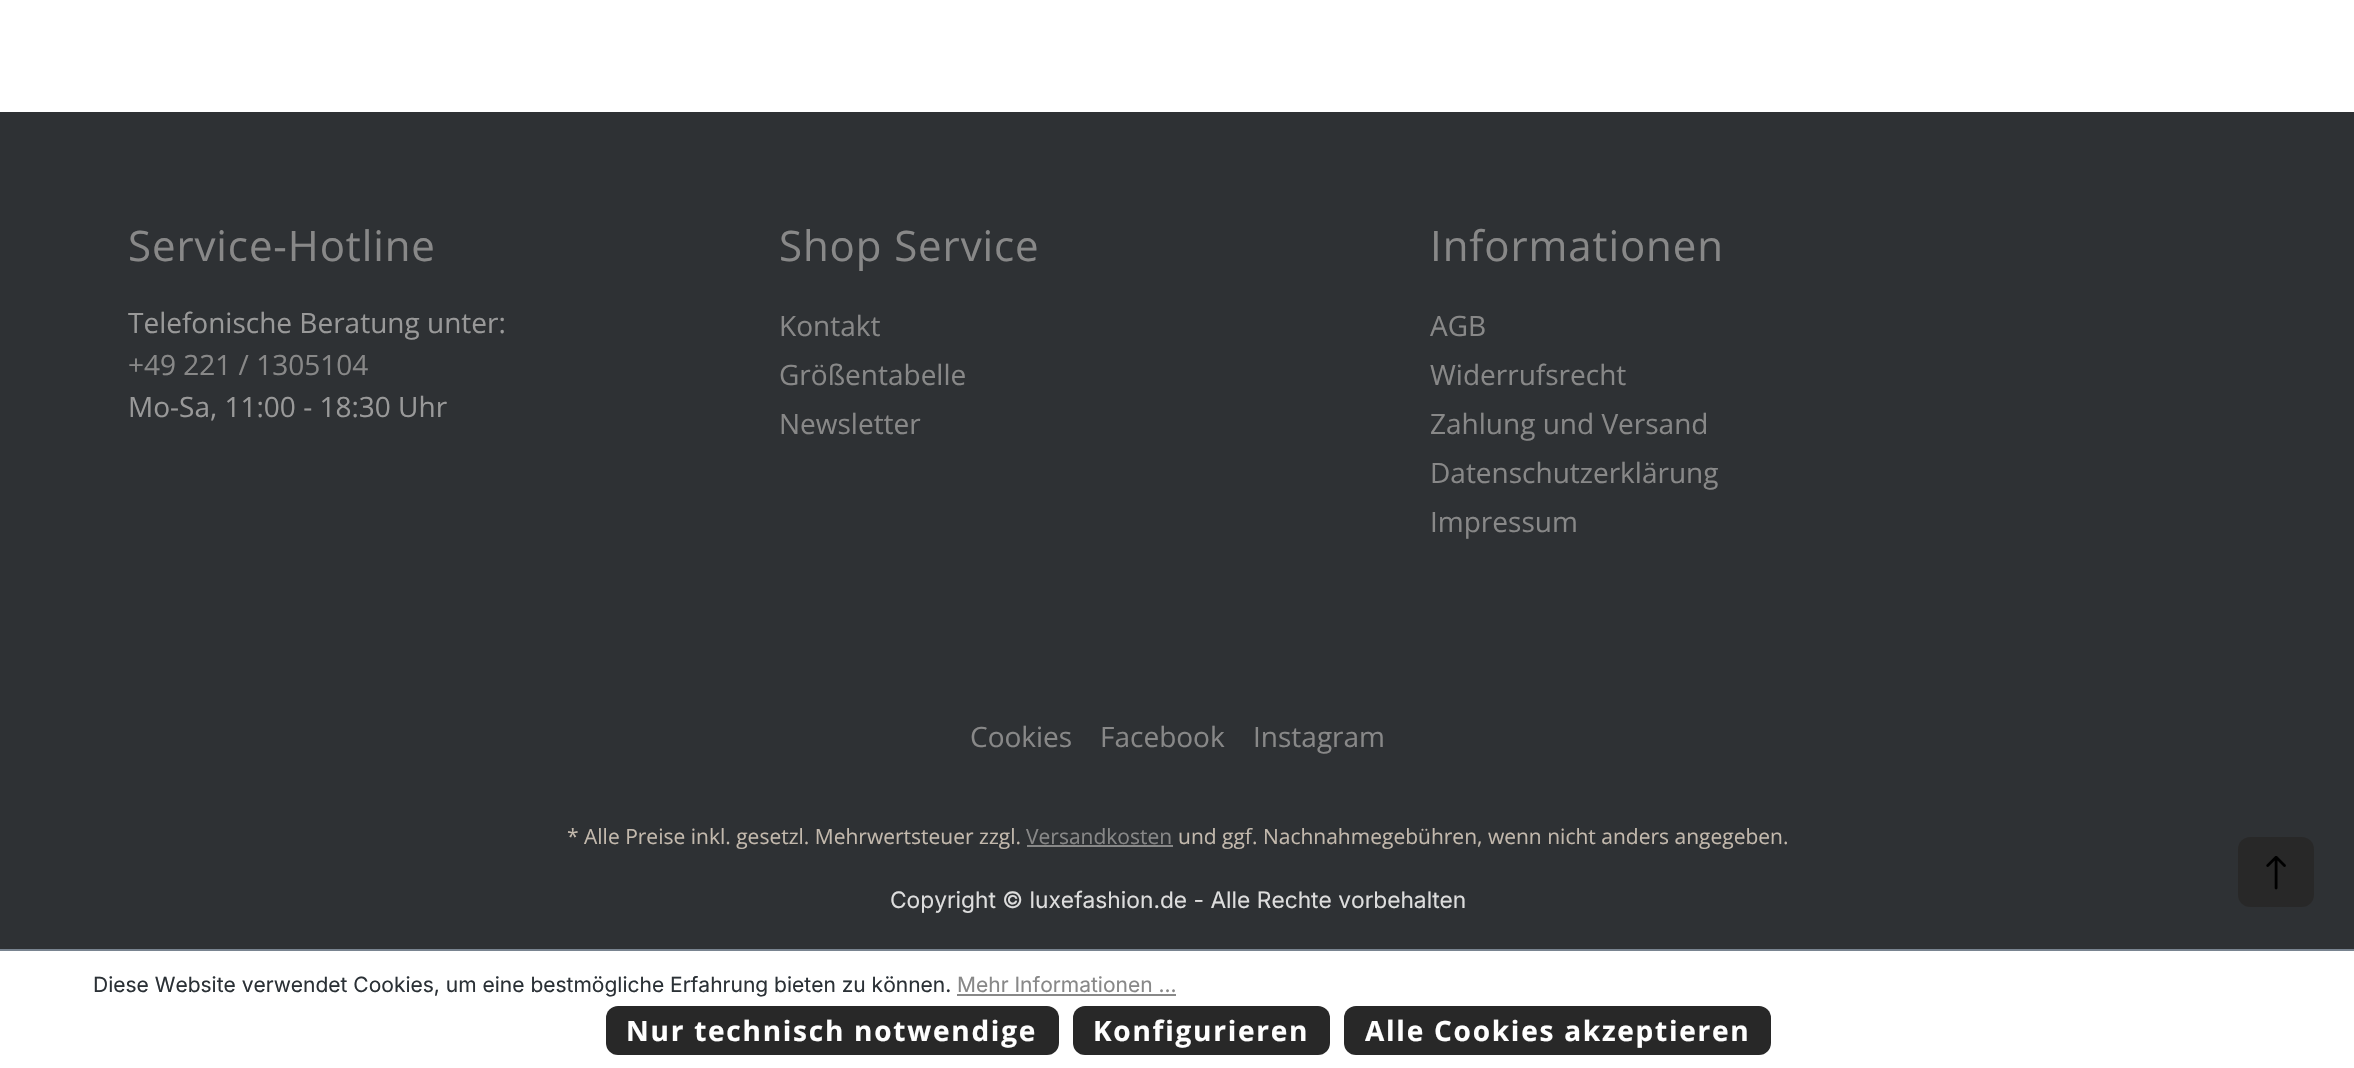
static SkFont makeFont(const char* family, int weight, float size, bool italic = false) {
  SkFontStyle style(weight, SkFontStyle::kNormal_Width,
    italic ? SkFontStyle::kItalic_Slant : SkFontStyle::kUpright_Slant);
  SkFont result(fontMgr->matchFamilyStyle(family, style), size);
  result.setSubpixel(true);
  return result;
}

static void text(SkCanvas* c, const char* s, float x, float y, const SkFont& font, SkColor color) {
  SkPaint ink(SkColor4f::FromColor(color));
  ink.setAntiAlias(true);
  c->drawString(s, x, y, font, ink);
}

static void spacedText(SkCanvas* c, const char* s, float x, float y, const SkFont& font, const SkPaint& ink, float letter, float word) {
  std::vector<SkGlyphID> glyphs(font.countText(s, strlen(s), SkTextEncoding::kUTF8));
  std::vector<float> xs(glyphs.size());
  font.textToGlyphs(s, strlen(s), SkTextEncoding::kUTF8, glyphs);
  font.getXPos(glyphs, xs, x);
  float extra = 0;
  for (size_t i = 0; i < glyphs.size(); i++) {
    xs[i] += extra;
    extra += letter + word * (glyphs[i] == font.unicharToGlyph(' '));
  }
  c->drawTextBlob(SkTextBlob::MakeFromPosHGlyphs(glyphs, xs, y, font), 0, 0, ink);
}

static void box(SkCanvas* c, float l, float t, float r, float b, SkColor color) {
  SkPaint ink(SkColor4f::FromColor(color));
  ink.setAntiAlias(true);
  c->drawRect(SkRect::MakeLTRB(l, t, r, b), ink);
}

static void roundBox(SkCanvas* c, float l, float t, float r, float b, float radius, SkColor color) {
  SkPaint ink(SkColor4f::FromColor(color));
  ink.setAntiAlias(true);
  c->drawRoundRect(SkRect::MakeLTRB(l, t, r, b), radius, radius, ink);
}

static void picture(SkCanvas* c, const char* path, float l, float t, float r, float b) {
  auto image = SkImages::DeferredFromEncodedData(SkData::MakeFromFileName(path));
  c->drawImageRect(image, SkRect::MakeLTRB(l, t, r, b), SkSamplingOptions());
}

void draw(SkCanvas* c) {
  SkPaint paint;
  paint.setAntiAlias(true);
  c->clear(0xffffffff);
  box(c, 0, 112, 2354, 949, 0xff2e3134);
  SkFont face1 = makeFont("Open Sans", 400, 42);
  paint.setColor(0xff888888);
  spacedText(c, "Service-Hotline", 128, 261, face1, paint, 0.9f, 0);
  SkFont face2 = makeFont("Open Sans", 400, 28);
  text(c, "Telefonische Beratung unter:", 128, 333, face2, 0xff999999);
  text(c, "+49 221 / 1305104", 128, 375, face2, 0xff888888);
  text(c, "Mo-Sa, 11:00 - 18:30 Uhr", 128, 417, face2, 0xff999999);
  spacedText(c, "Shop Service", 779, 261, face1, paint, 0.9f, 0);
  text(c, "Kontakt", 779, 336, face2, 0xff888888);
  text(c, "Größentabelle", 779, 385, face2, 0xff888888);
  text(c, "Newsletter", 779, 434, face2, 0xff888888);
  spacedText(c, "Informationen", 1430, 261, face1, paint, 0.9f, 0);
  text(c, "AGB", 1430, 336, face2, 0xff888888);
  text(c, "Widerrufsrecht", 1430, 385, face2, 0xff888888);
  text(c, "Zahlung und Versand", 1430, 434, face2, 0xff888888);
  text(c, "Datenschutzerklärung", 1430, 483, face2, 0xff888888);
  text(c, "Impressum", 1430, 532, face2, 0xff888888);
  text(c, "Cookies", 970, 747, face2, 0xff888888);
  text(c, "Facebook", 1100, 747, face2, 0xff888888);
  text(c, "Instagram", 1253, 747, face2, 0xff888888);
  SkFont face3 = makeFont("Open Sans", 400, 21);
  text(c, "* Alle Preise inkl. gesetzl. Mehrwertsteuer zzgl.", 567, 844, face3, 0xffc3b9ad);
  text(c, "Versandkosten", 1026, 844, face3, 0xff888888);
  box(c, 1027, 845, 1173, 847, 0xff888888);
  text(c, "und ggf. Nachnahmegebühren, wenn nicht anders angegeben.", 1178, 844, face3, 0xffc3b9ad);
  SkFont face4 = makeFont("Inter", 400, 22.75f);
  text(c, "Copyright © luxefashion.de - Alle Rechte vorbehalten", 890, 908, face4, 0xffdddddd);
  roundBox(c, 2238, 837, 2314, 907, 12, 0xff282828);
  picture(c, "img_01.png", 2266, 856, 2286, 890);
  box(c, 0, 949, 2354, 951, 0xff798490);
  SkFont face5 = makeFont("Inter", 400, 21);
  text(c, "Diese Website verwendet Cookies, um eine bestmögliche Erfahrung bieten zu können.", 93, 992, face5, 0xff2b3136);
  text(c, "Mehr Informationen ...", 957, 992, face5, 0xff888888);
  box(c, 957, 994, 1176, 996, 0xff888888);
  roundBox(c, 606, 1006, 1059, 1055, 12, 0xff282828);
  SkFont face6 = makeFont("Open Sans", 700, 28);
  paint.setColor(0xffffffff);
  spacedText(c, "Nur technisch notwendige", 626, 1041, face6, paint, 1.75f, 0);
  roundBox(c, 1073, 1006, 1330, 1055, 12, 0xff282828);
  spacedText(c, "Konfigurieren", 1093, 1041, face6, paint, 1.75f, 0);
  roundBox(c, 1344, 1006, 1771, 1055, 12, 0xff282828);
  spacedText(c, "Alle Cookies akzeptieren", 1365, 1041, face6, paint, 1.75f, 0);
}
